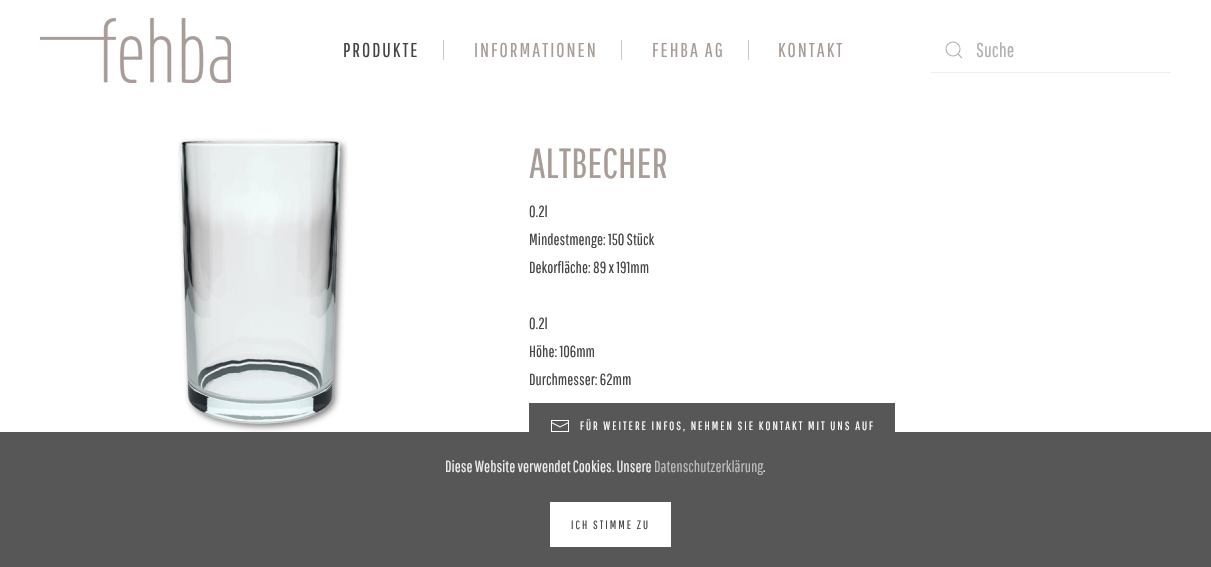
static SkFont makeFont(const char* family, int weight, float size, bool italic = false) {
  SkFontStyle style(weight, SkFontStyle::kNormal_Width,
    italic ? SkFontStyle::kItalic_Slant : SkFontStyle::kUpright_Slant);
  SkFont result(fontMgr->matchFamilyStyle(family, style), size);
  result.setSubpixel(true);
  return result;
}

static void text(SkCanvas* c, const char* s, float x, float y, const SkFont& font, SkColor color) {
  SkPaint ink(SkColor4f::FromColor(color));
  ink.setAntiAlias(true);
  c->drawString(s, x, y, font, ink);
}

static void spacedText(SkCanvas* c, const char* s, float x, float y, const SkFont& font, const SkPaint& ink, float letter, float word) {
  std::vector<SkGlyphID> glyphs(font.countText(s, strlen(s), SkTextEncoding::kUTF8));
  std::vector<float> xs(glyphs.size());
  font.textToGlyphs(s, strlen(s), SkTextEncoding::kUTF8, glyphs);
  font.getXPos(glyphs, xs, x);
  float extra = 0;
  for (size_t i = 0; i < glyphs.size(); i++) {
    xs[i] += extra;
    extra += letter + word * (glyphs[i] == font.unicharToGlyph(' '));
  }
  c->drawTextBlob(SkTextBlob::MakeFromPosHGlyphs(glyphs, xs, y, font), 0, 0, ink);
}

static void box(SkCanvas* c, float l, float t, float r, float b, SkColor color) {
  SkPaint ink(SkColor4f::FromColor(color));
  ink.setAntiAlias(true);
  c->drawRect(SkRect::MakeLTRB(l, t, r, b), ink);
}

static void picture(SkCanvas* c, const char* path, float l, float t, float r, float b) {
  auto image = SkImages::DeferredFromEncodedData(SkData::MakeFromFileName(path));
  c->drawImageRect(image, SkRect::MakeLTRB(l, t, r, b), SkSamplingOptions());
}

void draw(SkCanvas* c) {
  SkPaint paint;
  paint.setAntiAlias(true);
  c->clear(0xffffffff);
  picture(c, "img_01.png", 40, 18, 231, 83);
  SkFont face1 = makeFont("Pathway Gothic One", 400, 20);
  paint.setColor(0xff444444);
  spacedText(c, "PRODUKTE", 343, 57, face1, paint, 2, 0);
  box(c, 443, 40, 444, 60, 0xffc5cacf);
  paint.setColor(0xffa99c96);
  spacedText(c, "INFORMATIONEN", 474, 57, face1, paint, 2, 0);
  box(c, 621, 40, 622, 60, 0xffc5cacf);
  spacedText(c, "FEHBA AG", 652, 57, face1, paint, 2, 0);
  box(c, 748, 40, 749, 60, 0xffc5cacf);
  spacedText(c, "KONTAKT", 778, 57, face1, paint, 2, 0);
  paint.setStyle(SkPaint::kStroke_Style);
  paint.setStrokeWidth(1.1f);
  paint.setColor(0xffb1b1b1);
  c->drawCircle(953, 49, 7, paint);
  c->drawPath(SkPathBuilder().moveTo(958, 54).lineTo(962, 58).close().detach(), paint);
  box(c, 931, 72, 1171, 73, 0xffeeeeee);
  text(c, "Suche", 976, 57, face1, 0xffb1b1b1);
  picture(c, "img_02.png", 178, 138, 348, 432);
  SkFont face2 = makeFont("Pathway Gothic One", 400, 42);
  text(c, "ALTBECHER", 529, 178, face2, 0xffa99c96);
  SkFont face3 = makeFont("Pathway Gothic One", 400, 16);
  text(c, "0.2l", 529, 217, face3, 0xff444444);
  text(c, "Mindestmenge: 150 Stück", 529, 245, face3, 0xff444444);
  text(c, "Dekorfläche: 89 x 191mm", 529, 273, face3, 0xff444444);
  text(c, "0.2l", 529, 329, face3, 0xff444444);
  text(c, "Höhe: 106mm", 529, 357, face3, 0xff444444);
  text(c, "Durchmesser: 62mm", 529, 385, face3, 0xff444444);
  box(c, 529, 403, 895, 432, 0xff575757);
  picture(c, "img_03.png", 551, 420, 569, 432);
  SkFont face4 = makeFont("Pathway Gothic One", 400, 12);
  paint.setStyle(SkPaint::kFill_Style);
  paint.setColor(0xffffffff);
  spacedText(c, "FÜR WEITERE INFOS, NEHMEN SIE KONTAKT MIT UNS AUF", 580, 430, face4, paint, 2, 0);
  box(c, 0, 432, 1211, 567, 0xff575757);
  text(c, "Diese Website verwendet Cookies. Unsere", 445, 472, face3, 0xffeeeeee);
  text(c, "Datenschutzerklärung", 654, 472, face3, 0xffbcbcbc);
  text(c, ".", 763, 472, face3, 0xffeeeeee);
  box(c, 550, 502, 671, 547, 0xffffffff);
  paint.setColor(0xff444444);
  spacedText(c, "ICH STIMME ZU", 571, 529, face4, paint, 2, 0);
}
